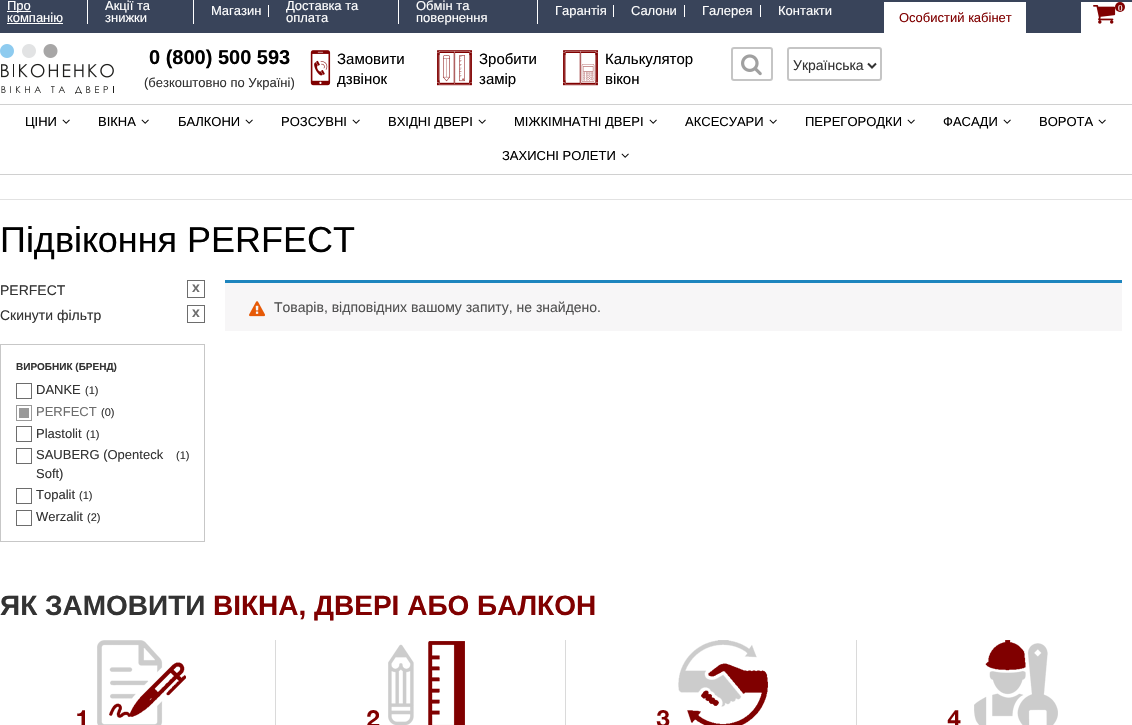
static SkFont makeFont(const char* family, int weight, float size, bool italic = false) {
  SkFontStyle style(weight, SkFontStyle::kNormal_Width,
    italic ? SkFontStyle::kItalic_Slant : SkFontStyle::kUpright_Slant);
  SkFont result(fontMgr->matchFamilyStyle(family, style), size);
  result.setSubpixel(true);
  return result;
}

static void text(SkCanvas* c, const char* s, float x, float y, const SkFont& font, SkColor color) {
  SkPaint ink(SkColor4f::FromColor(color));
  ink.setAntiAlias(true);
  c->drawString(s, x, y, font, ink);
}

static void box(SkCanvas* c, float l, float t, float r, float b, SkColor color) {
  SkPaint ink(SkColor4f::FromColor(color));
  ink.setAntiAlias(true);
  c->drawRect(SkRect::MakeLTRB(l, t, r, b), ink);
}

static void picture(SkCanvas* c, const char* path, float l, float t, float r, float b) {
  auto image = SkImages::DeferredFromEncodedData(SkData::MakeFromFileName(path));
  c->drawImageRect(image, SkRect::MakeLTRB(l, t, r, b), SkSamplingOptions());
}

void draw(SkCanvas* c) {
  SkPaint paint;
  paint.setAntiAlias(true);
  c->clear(0xffffffff);
  box(c, 0, 0, 1132, 33, 0xff39445a);
  box(c, 87, 0, 88, 24, 0xffffffff);
  box(c, 7, 11, 31, 12, 0xffffffff);
  SkFont face1 = makeFont("Liberation Sans", 400, 13);
  text(c, "Про", 7, 10, face1, 0xffffffff);
  text(c, "компанію", 7, 22, face1, 0xffffffff);
  box(c, 7, 23, 63, 24, 0xffffffff);
  box(c, 193, 0, 194, 24, 0xffffffff);
  text(c, "Акції та", 105, 10, face1, 0xffffffff);
  text(c, "знижки", 105, 22, face1, 0xffffffff);
  box(c, 268, 5, 269, 17, 0xffffffff);
  text(c, "Магазин", 211, 15, face1, 0xffffffff);
  box(c, 398, 0, 399, 24, 0xffffffff);
  text(c, "Доставка та", 286, 10, face1, 0xffffffff);
  text(c, "оплата", 286, 22, face1, 0xffffffff);
  box(c, 537, 0, 538, 24, 0xffffffff);
  text(c, "Обмін та", 416, 10, face1, 0xffffffff);
  text(c, "повернення", 416, 22, face1, 0xffffffff);
  box(c, 613, 5, 614, 17, 0xffffffff);
  text(c, "Гарантія", 555, 15, face1, 0xffffffff);
  box(c, 684, 5, 685, 17, 0xffffffff);
  text(c, "Салони", 631, 15, face1, 0xffffffff);
  box(c, 760, 5, 761, 17, 0xffffffff);
  text(c, "Галерея", 702, 15, face1, 0xffffffff);
  text(c, "Контакти", 778, 15, face1, 0xffffffff);
  box(c, 1081, 2, 1132, 33, 0xffffffff);
  picture(c, "img_01.png", 1093, 5, 1116, 24);
  paint.setColor(0xff800000);
  c->drawCircle(1120, 7, 5, paint);
  SkFont face2 = makeFont("Liberation Serif", 400, 9);
  text(c, "0", 1118, 11, face2, 0xffffffff);
  box(c, 884, 2, 1026, 33, 0xffffffff);
  text(c, "Особистий кабінет", 899, 22, face1, 0xff800000);
  picture(c, "img_02.png", 0, 44, 114, 94);
  SkFont face3 = makeFont("Liberation Sans", 700, 20);
  text(c, "0 (800) 500 593", 149, 64, face3, 0xff000000);
  text(c, "(безкоштовно по Україні)", 144, 87, face1, 0xff333333);
  picture(c, "img_03.png", 310, 50, 331, 86);
  SkFont face4 = makeFont("Liberation Sans", 400, 15);
  text(c, "Замовити", 337, 64, face4, 0xff000000);
  text(c, "дзвінок", 337, 84, face4, 0xff000000);
  picture(c, "img_04.png", 437, 50, 472, 86);
  text(c, "Зробити", 479, 64, face4, 0xff000000);
  text(c, "замір", 479, 84, face4, 0xff000000);
  picture(c, "img_05.png", 563, 50, 598, 86);
  text(c, "Калькулятор", 605, 64, face4, 0xff000000);
  text(c, "вікон", 605, 84, face4, 0xff000000);
  paint.setStyle(SkPaint::kStroke_Style);
  paint.setStrokeWidth(2);
  paint.setColor(0xffc5c5c5);
  c->drawRoundRect(SkRect::MakeLTRB(732, 48, 772, 80), 2, 2, paint);
  picture(c, "img_06.png", 741, 54, 762, 76);
  c->drawRoundRect(SkRect::MakeLTRB(788, 48, 881, 80), 2, 2, paint);
  paint.setColor(0xff333333);
  c->drawPath(SkPathBuilder().moveTo(868, 63.5f).lineTo(872, 67.5f).lineTo(876, 63.5f).detach(), paint);
  SkFont face5 = makeFont("Liberation Sans", 400, 14);
  text(c, "Українська", 793, 70, face5, 0xff333333);
  box(c, 0, 104, 1132, 105, 0xffd0d0d0);
  box(c, 0, 174, 1132, 175, 0xffd0d0d0);
  text(c, "ЦІНИ", 25, 126, face1, 0xff000000);
  picture(c, "img_07.png", 62, 119, 70, 124);
  text(c, "ВІКНА", 98, 126, face1, 0xff000000);
  picture(c, "img_07.png", 141, 119, 149, 124);
  text(c, "БАЛКОНИ", 178, 126, face1, 0xff000000);
  picture(c, "img_07.png", 245, 119, 253, 124);
  text(c, "РОЗСУВНІ", 281, 126, face1, 0xff000000);
  picture(c, "img_07.png", 352, 119, 360, 124);
  text(c, "ВХІДНІ ДВЕРІ", 388, 126, face1, 0xff000000);
  picture(c, "img_07.png", 478, 119, 486, 124);
  text(c, "МІЖКІМНАТНІ ДВЕРІ", 514, 126, face1, 0xff000000);
  picture(c, "img_07.png", 649, 119, 657, 124);
  text(c, "АКСЕСУАРИ", 685, 126, face1, 0xff000000);
  picture(c, "img_07.png", 769, 119, 777, 124);
  text(c, "ПЕРЕГОРОДКИ", 805, 126, face1, 0xff000000);
  picture(c, "img_07.png", 907, 119, 915, 124);
  text(c, "ФАСАДИ", 943, 126, face1, 0xff000000);
  picture(c, "img_07.png", 1003, 119, 1011, 124);
  text(c, "ВОРОТА", 1039, 126, face1, 0xff000000);
  picture(c, "img_07.png", 1098, 119, 1106, 124);
  text(c, "ЗАХИСНІ РОЛЕТИ", 502, 160, face1, 0xff000000);
  picture(c, "img_07.png", 621, 153, 629, 158);
  box(c, 0, 199, 1132, 200, 0xffe2e2e2);
  SkFont face6 = makeFont("Liberation Sans", 400, 36);
  text(c, "Підвіконня PERFECT", 0, 252, face6, 0xff000000);
  text(c, "PERFECT", 0, 295, face5, 0xff333333);
  paint.setStrokeWidth(1);
  paint.setColor(0xff6d6d6d);
  c->drawRect(SkRect::MakeLTRB(187.5f, 280.5f, 204.5f, 297.5f), paint);
  SkFont face7 = makeFont("Liberation Sans", 700, 14);
  text(c, "x", 192, 292, face7, 0xff6d6d6d);
  text(c, "Скинути фільтр", 0, 320, face5, 0xff333333);
  c->drawRect(SkRect::MakeLTRB(187.5f, 305.5f, 204.5f, 322.5f), paint);
  text(c, "x", 192, 317, face7, 0xff6d6d6d);
  paint.setColor(0xffc7c7c7);
  c->drawRect(SkRect::MakeLTRB(0.5f, 344.5f, 204.5f, 541.5f), paint);
  SkFont face8 = makeFont("Liberation Sans", 700, 10);
  text(c, "ВИРОБНИК (БРЕНД)", 16, 370, face8, 0xff333333);
  paint.setColor(0xff6d6d6d);
  c->drawRect(SkRect::MakeLTRB(16.5f, 383.5f, 31.5f, 398.5f), paint);
  text(c, "DANKE", 36, 394, face1, 0xff333333);
  SkFont face9 = makeFont("Liberation Sans", 400, 11);
  text(c, "(1)", 85, 394, face9, 0xff333333);
  paint.setColor(0xff999999);
  c->drawRect(SkRect::MakeLTRB(16.5f, 405.5f, 31.5f, 420.5f), paint);
  box(c, 19, 408, 29, 418, 0xff999999);
  text(c, "PERFECT", 36, 416, face1, 0xff6d6d6d);
  text(c, "(0)", 101, 416, face9, 0xff333333);
  paint.setColor(0xff6d6d6d);
  c->drawRect(SkRect::MakeLTRB(16.5f, 426.5f, 31.5f, 441.5f), paint);
  text(c, "Plastolit", 36, 438, face1, 0xff333333);
  text(c, "(1)", 86, 438, face9, 0xff333333);
  c->drawRect(SkRect::MakeLTRB(16.5f, 448.5f, 31.5f, 463.5f), paint);
  text(c, "SAUBERG (Openteck", 36, 459, face1, 0xff333333);
  text(c, "Soft)", 36, 478, face1, 0xff333333);
  text(c, "(1)", 176, 459, face9, 0xff333333);
  c->drawRect(SkRect::MakeLTRB(16.5f, 488.5f, 31.5f, 503.5f), paint);
  text(c, "Topalit", 36, 499, face1, 0xff333333);
  text(c, "(1)", 79, 499, face9, 0xff333333);
  c->drawRect(SkRect::MakeLTRB(16.5f, 510.5f, 31.5f, 525.5f), paint);
  text(c, "Werzalit", 36, 521, face1, 0xff333333);
  text(c, "(2)", 87, 521, face9, 0xff333333);
  box(c, 225, 283, 1122, 331, 0xfff7f6f7);
  box(c, 225, 280, 1122, 283, 0xff1e85be);
  picture(c, "img_08.png", 249, 301, 265, 317);
  text(c, "Товарів, відповідних вашому запиту, не знайдено.", 274, 312, face5, 0xff515151);
  SkFont face10 = makeFont("Liberation Sans", 700, 28);
  text(c, "ЯК ЗАМОВИТИ", 0, 615, face10, 0xff333333);
  text(c, "ВІКНА, ДВЕРІ АБО БАЛКОН", 213, 615, face10, 0xff800000);
  box(c, 275, 640, 276, 725, 0xffdadada);
  picture(c, "img_09.png", 77, 640, 186, 725);
  box(c, 565, 640, 566, 725, 0xffdadada);
  picture(c, "img_10.png", 367, 641, 465, 725);
  box(c, 856, 640, 857, 725, 0xffdadada);
  picture(c, "img_11.png", 656, 640, 768, 725);
  picture(c, "img_12.png", 947, 640, 1058, 725);
}
